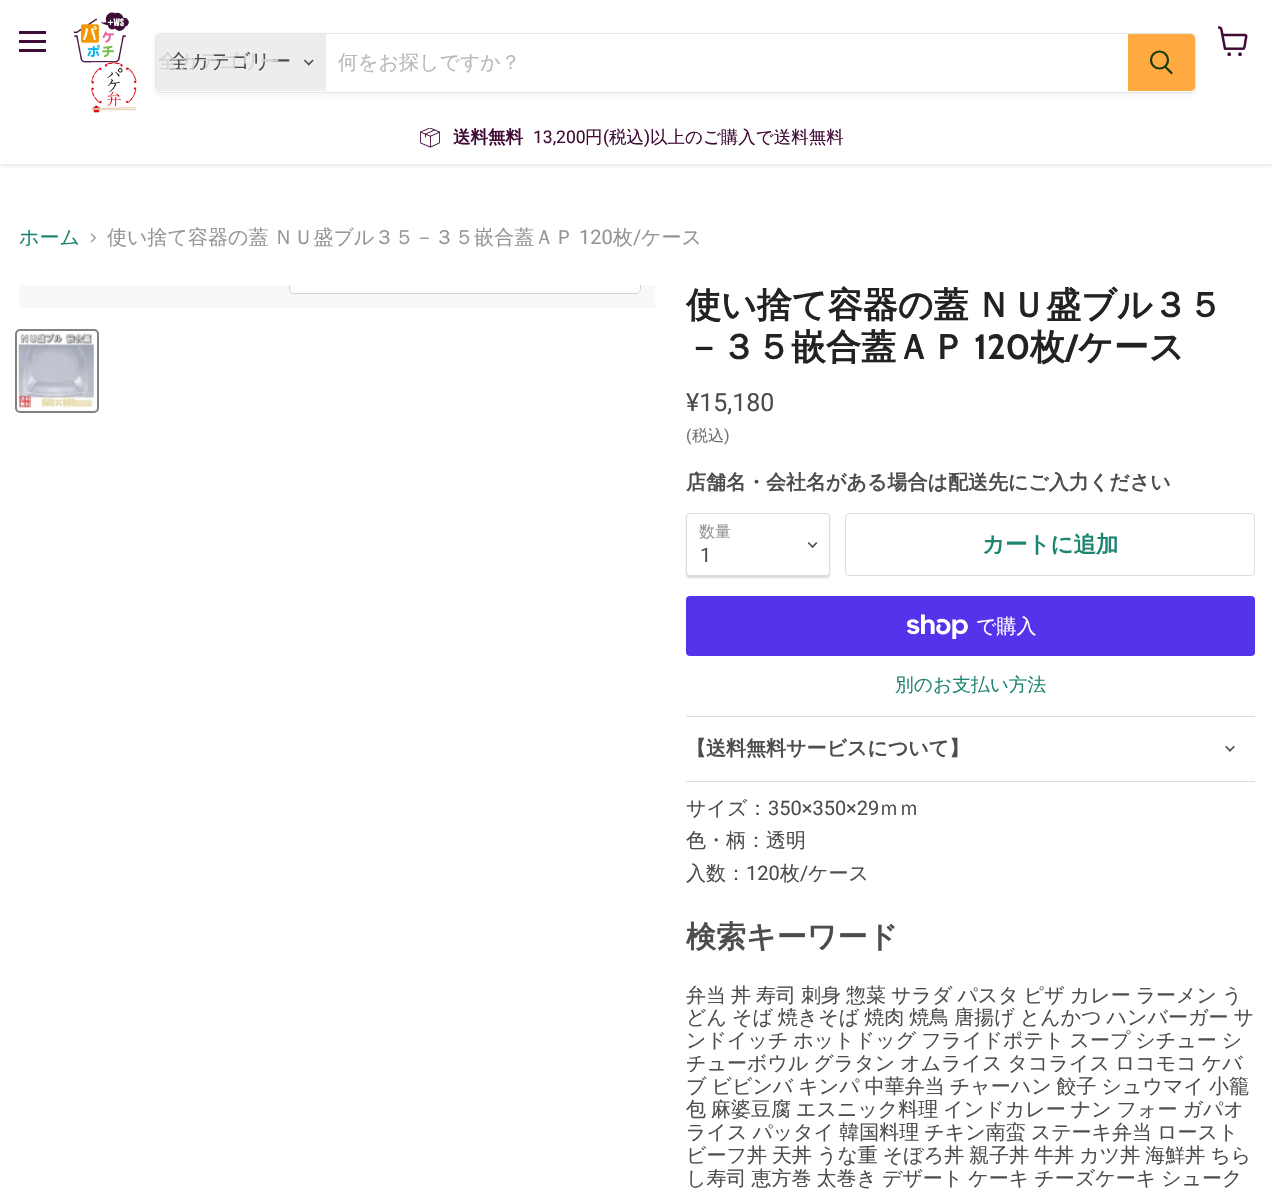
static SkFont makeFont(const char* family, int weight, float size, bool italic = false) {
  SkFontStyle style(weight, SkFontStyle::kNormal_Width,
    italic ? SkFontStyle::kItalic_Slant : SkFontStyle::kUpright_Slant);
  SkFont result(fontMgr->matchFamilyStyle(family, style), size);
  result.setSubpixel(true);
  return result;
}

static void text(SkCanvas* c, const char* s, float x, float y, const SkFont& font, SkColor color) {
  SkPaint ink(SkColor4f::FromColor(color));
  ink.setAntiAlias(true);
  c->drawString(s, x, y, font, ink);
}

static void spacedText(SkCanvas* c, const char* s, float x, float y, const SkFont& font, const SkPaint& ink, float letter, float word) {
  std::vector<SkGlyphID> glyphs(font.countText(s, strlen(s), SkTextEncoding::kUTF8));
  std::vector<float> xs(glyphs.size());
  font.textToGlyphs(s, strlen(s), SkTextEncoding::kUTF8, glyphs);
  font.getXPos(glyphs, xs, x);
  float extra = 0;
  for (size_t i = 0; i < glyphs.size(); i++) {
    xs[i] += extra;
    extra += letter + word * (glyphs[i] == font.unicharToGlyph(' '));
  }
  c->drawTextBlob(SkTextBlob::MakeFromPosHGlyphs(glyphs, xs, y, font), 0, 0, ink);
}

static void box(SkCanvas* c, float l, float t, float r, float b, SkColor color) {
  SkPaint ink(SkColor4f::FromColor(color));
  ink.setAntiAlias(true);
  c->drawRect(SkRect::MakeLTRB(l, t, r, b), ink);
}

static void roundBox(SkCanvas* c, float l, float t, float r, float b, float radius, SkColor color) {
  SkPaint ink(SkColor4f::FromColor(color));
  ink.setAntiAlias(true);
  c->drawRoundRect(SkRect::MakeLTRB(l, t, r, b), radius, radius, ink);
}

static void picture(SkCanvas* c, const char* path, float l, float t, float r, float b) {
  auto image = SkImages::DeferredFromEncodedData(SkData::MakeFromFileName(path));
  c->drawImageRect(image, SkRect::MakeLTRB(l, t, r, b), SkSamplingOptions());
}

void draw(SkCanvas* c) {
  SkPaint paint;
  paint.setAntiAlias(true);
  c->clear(0xffffffff);
  paint.setColor(0x40808080);
  paint.setMaskFilter(SkMaskFilter::MakeBlur(kNormal_SkBlurStyle, 2.5f));
  c->drawRect(SkRect::MakeLTRB(0, 1, 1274, 165), paint);
  paint.setMaskFilter(nullptr);
  box(c, 0, 0, 1273, 164, 0xffffffff);
  box(c, 19, 31, 46, 34, 0xff400b36);
  box(c, 19, 40, 46, 43, 0xff400b36);
  box(c, 19, 49, 46, 52, 0xff400b36);
  picture(c, "img_01.png", 1218, 26, 1248, 56);
  picture(c, "img_02.png", 73, 12, 129, 63);
  picture(c, "img_03.png", 91, 62, 137, 113);
  c->save();
  c->clipPath(SkPathBuilder(SkPathFillType::kEvenOdd).moveTo(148, 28).lineTo(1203, 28).lineTo(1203, 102).lineTo(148, 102).close().moveTo(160, 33).lineTo(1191, 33).cubicTo(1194, 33, 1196, 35, 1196, 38).lineTo(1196, 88).cubicTo(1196, 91, 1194, 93, 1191, 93).lineTo(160, 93).cubicTo(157, 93, 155, 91, 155, 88).lineTo(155, 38).cubicTo(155, 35, 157, 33, 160, 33).close().detach(), true);
  paint.setColor(0x1c808080);
  paint.setMaskFilter(SkMaskFilter::MakeBlur(kNormal_SkBlurStyle, 2));
  c->drawRoundRect(SkRect::MakeLTRB(155, 35, 1196, 95), 5, 5, paint);
  paint.setMaskFilter(nullptr);
  c->restore();
  paint.setStyle(SkPaint::kStroke_Style);
  paint.setStrokeWidth(1);
  paint.setColor(0x33808080);
  c->drawRoundRect(SkRect::MakeLTRB(155.5f, 33.5f, 1195.5f, 92.5f), 4.5f, 4.5f, paint);
  paint.setStyle(SkPaint::kFill_Style);
  paint.setColor(0xffededed);
  c->drawPath(SkPathBuilder().moveTo(160, 34).lineTo(326, 34).lineTo(326, 91).lineTo(160, 91).cubicTo(158, 91, 156, 89, 156, 87).lineTo(156, 38).cubicTo(156, 36, 158, 34, 160, 34).close().detach(), paint);
  SkFont face1 = makeFont("WenQuanYi Zen Hei", 500, 20);
  text(c, "全カテゴリー", 169, 68, face1, 0xff4d4d4d);
  text(c, "全カテゴリー", 158, 68, face1, 0xffd2d2d2);
  picture(c, "img_04.png", 304, 59, 314, 66);
  text(c, "何をお探しですか？", 338, 69, face1, 0xffb8b8b8);
  paint.setColor(0xffffab41);
  c->drawPath(SkPathBuilder().moveTo(1128.5f, 34.5f).lineTo(1191, 34.5f).cubicTo(1193, 34.5f, 1194.5f, 36, 1194.5f, 38).lineTo(1194.5f, 87).cubicTo(1194.5f, 89, 1193, 90.5f, 1191, 90.5f).lineTo(1128.5f, 90.5f).close().detach(), paint);
  paint.setStyle(SkPaint::kStroke_Style);
  c->drawPath(SkPathBuilder().moveTo(1128.5f, 34.5f).lineTo(1191, 34.5f).cubicTo(1193, 34.5f, 1194.5f, 36, 1194.5f, 38).lineTo(1194.5f, 87).cubicTo(1194.5f, 89, 1193, 90.5f, 1191, 90.5f).lineTo(1128.5f, 90.5f).close().detach(), paint);
  paint.setStrokeWidth(2.2f);
  paint.setStrokeCap(SkPaint::kRound_Cap);
  paint.setColor(0xff1a390c);
  c->drawPath(SkPathBuilder().moveTo(1171.5f, 73).lineTo(1165.5f, 67).detach(), paint);
  paint.setStrokeCap(SkPaint::kButt_Cap);
  c->drawCircle(1159.5f, 60, 8.5f, paint);
  picture(c, "img_05.png", 420, 128, 440, 148);
  SkFont face2 = makeFont("WenQuanYi Zen Hei", 700, 17.5f);
  text(c, "送料無料", 453, 143, face2, 0xff400b36);
  SkFont face3 = makeFont("Roboto", 400, 17.5f);
  text(c, "13,200", 533, 143, face3, 0xff400b36);
  SkFont face4 = makeFont("WenQuanYi Zen Hei", 500, 17.5f);
  text(c, "円", 585, 143, face4, 0xff400b36);
  text(c, "(", 603, 143, face3, 0xff400b36);
  text(c, "税込", 609, 143, face4, 0xff400b36);
  text(c, ")", 644, 143, face3, 0xff400b36);
  text(c, "以上のご購入で送料無料", 650, 143, face4, 0xff400b36);
  text(c, "ホーム", 19, 244, face1, 0xff1e8570);
  picture(c, "img_06.png", 90, 233, 96, 243);
  paint.setStyle(SkPaint::kFill_Style);
  paint.setColor(0xff949494);
  spacedText(c, "使い捨て容器の蓋 ＮＵ盛ブル３５－３５嵌合蓋ＡＰ", 107, 244, face1, paint, 0, -1);
  SkFont face5 = makeFont("Roboto", 400, 20);
  text(c, "120", 579, 244, face5, 0xff949494);
  text(c, "枚", 613, 244, face1, 0xff949494);
  text(c, "/", 633, 244, face5, 0xff949494);
  text(c, "ケース", 641, 244, face1, 0xff949494);
  box(c, 19, 285, 655, 308, 0xfff8f8f8);
  c->save();
  c->clipRect(SkRect::MakeLTRB(19, 285, 655, 308));
  paint.setStyle(SkPaint::kStroke_Style);
  paint.setStrokeWidth(1);
  paint.setColor(0xffd3d3d3);
  c->drawRoundRect(SkRect::MakeLTRB(289.5f, 256.5f, 640.5f, 293.5f), 4.5f, 4.5f, paint);
  c->restore();
  paint.setStyle(SkPaint::kFill_Style);
  paint.setColor(0xe6ffffff);
  c->drawPath(SkPathBuilder().moveTo(290, 285).lineTo(640, 285).lineTo(640, 289).cubicTo(640, 291, 638, 293, 636, 293).lineTo(294, 293).cubicTo(292, 293, 290, 291, 290, 289).close().detach(), paint);
  paint.setStyle(SkPaint::kStroke_Style);
  paint.setStrokeWidth(2);
  paint.setColor(0xff818181);
  c->drawRoundRect(SkRect::MakeLTRB(16, 330, 98, 412), 4, 4, paint);
  picture(c, "img_07.png", 18, 333, 94, 408);
  SkFont face6 = makeFont("WenQuanYi Zen Hei", 700, 35);
  paint.setStyle(SkPaint::kFill_Style);
  paint.setColor(0xff222222);
  spacedText(c, "使い捨て容器の蓋 ＮＵ盛ブル３５", 686, 317, face6, paint, 0, -3);
  text(c, "－３５嵌合蓋ＡＰ", 686, 359, face6, 0xff222222);
  SkFont face7 = makeFont("Cabin", 700, 35);
  text(c, "120", 974, 359, face7, 0xff222222);
  text(c, "枚", 1030, 359, face6, 0xff222222);
  text(c, "/", 1065, 359, face7, 0xff222222);
  text(c, "ケース", 1078, 359, face6, 0xff222222);
  SkFont face8 = makeFont("Roboto", 400, 25);
  text(c, "¥15,180", 686, 411, face8, 0xff4d4d4d);
  SkFont face9 = makeFont("Roboto", 400, 16);
  text(c, "(", 686, 441, face9, 0xff717171);
  SkFont face10 = makeFont("WenQuanYi Zen Hei", 500, 16);
  text(c, "税込", 692, 441, face10, 0xff717171);
  text(c, ")", 724, 441, face9, 0xff717171);
  SkFont face11 = makeFont("WenQuanYi Zen Hei", 700, 20);
  text(c, "店舗名・会社名がある場合は配送先にご入力ください", 686, 489, face11, 0xff4d4d4d);
  paint.setColor(0x26000000);
  paint.setMaskFilter(SkMaskFilter::MakeBlur(kNormal_SkBlurStyle, 1));
  c->drawRoundRect(SkRect::MakeLTRB(686, 514, 830, 578), 4, 4, paint);
  paint.setMaskFilter(nullptr);
  paint.setColor(0xffffffff);
  c->drawRoundRect(SkRect::MakeLTRB(686.5f, 513.5f, 829.5f, 575.5f), 3.5f, 3.5f, paint);
  paint.setStyle(SkPaint::kStroke_Style);
  paint.setStrokeWidth(1);
  paint.setColor(0xffdddddd);
  c->drawRoundRect(SkRect::MakeLTRB(686.5f, 513.5f, 829.5f, 575.5f), 3.5f, 3.5f, paint);
  text(c, "数量", 699, 537, face10, 0xff949494);
  picture(c, "img_08.png", 808, 542, 818, 548);
  text(c, "1", 700, 562, face5, 0xff4d4d4d);
  c->drawRoundRect(SkRect::MakeLTRB(845.5f, 513.5f, 1254.5f, 575.5f), 3.5f, 3.5f, paint);
  SkFont face12 = makeFont("WenQuanYi Zen Hei", 700, 22.5f);
  text(c, "カートに追加", 982, 552, face12, 0xff1e8570);
  roundBox(c, 686, 596, 1255, 656, 4, 0xff5433eb);
  picture(c, "img_09.png", 906, 614, 968, 639);
  text(c, "で購入", 976, 633, face1, 0xffffffff);
  SkFont face13 = makeFont("WenQuanYi Zen Hei", 500, 18.75f);
  text(c, "別のお支払い方法", 895, 691, face13, 0xff1e8570);
  box(c, 686, 716, 1255, 717, 0xffdddddd);
  box(c, 686, 781, 1255, 782, 0xffdddddd);
  text(c, "【送料無料サービスについて】", 686, 755, face11, 0xff4d4d4d);
  picture(c, "img_10.png", 1225, 745, 1235, 752);
  text(c, "サイズ：", 686, 815, face1, 0xff4d4d4d);
  text(c, "350×350×29", 768, 815, face5, 0xff4d4d4d);
  text(c, "ｍｍ", 879, 815, face1, 0xff4d4d4d);
  text(c, "色・柄：透明", 686, 847, face1, 0xff4d4d4d);
  text(c, "入数：", 686, 880, face1, 0xff4d4d4d);
  text(c, "120", 746, 880, face5, 0xff4d4d4d);
  text(c, "枚", 780, 880, face1, 0xff4d4d4d);
  text(c, "/", 800, 880, face5, 0xff4d4d4d);
  text(c, "ケース", 808, 880, face1, 0xff4d4d4d);
  SkFont face14 = makeFont("WenQuanYi Zen Hei", 700, 30);
  text(c, "検索キーワード", 686, 947, face14, 0xff4d4d4d);
  paint.setStyle(SkPaint::kFill_Style);
  paint.setColor(0xff4d4d4d);
  spacedText(c, "弁当 丼 寿司 刺身 惣菜 サラダ パスタ ピザ カレー ラーメン う", 686, 1002, face1, paint, 0, -1);
  spacedText(c, "どん そば 焼きそば 焼肉 焼鳥 唐揚げ とんかつ ハンバーガー サ", 686, 1024, face1, paint, 0, -1);
  spacedText(c, "ンドイッチ ホットドッグ フライドポテト スープ シチュー シ", 686, 1047, face1, paint, 0, -1);
  spacedText(c, "チューボウル グラタン オムライス タコライス ロコモコ ケバ", 686, 1070, face1, paint, 0, -1);
  spacedText(c, "ブ ビビンバ キンパ 中華弁当 チャーハン 餃子 シュウマイ 小籠", 686, 1093, face1, paint, 0, -1);
  spacedText(c, "包 麻婆豆腐 エスニック料理 インドカレー ナン フォー ガパオ", 686, 1116, face1, paint, 0, -1);
  spacedText(c, "ライス パッタイ 韓国料理 チキン南蛮 ステーキ弁当 ロースト", 686, 1139, face1, paint, 0, -1);
  spacedText(c, "ビーフ丼 天丼 うな重 そぼろ丼 親子丼 牛丼 カツ丼 海鮮丼 ちら", 686, 1162, face1, paint, 0, -1);
  spacedText(c, "し寿司 恵方巻 太巻き デザート ケーキ チーズケーキ シューク", 686, 1185, face1, paint, 0, -1);
}
